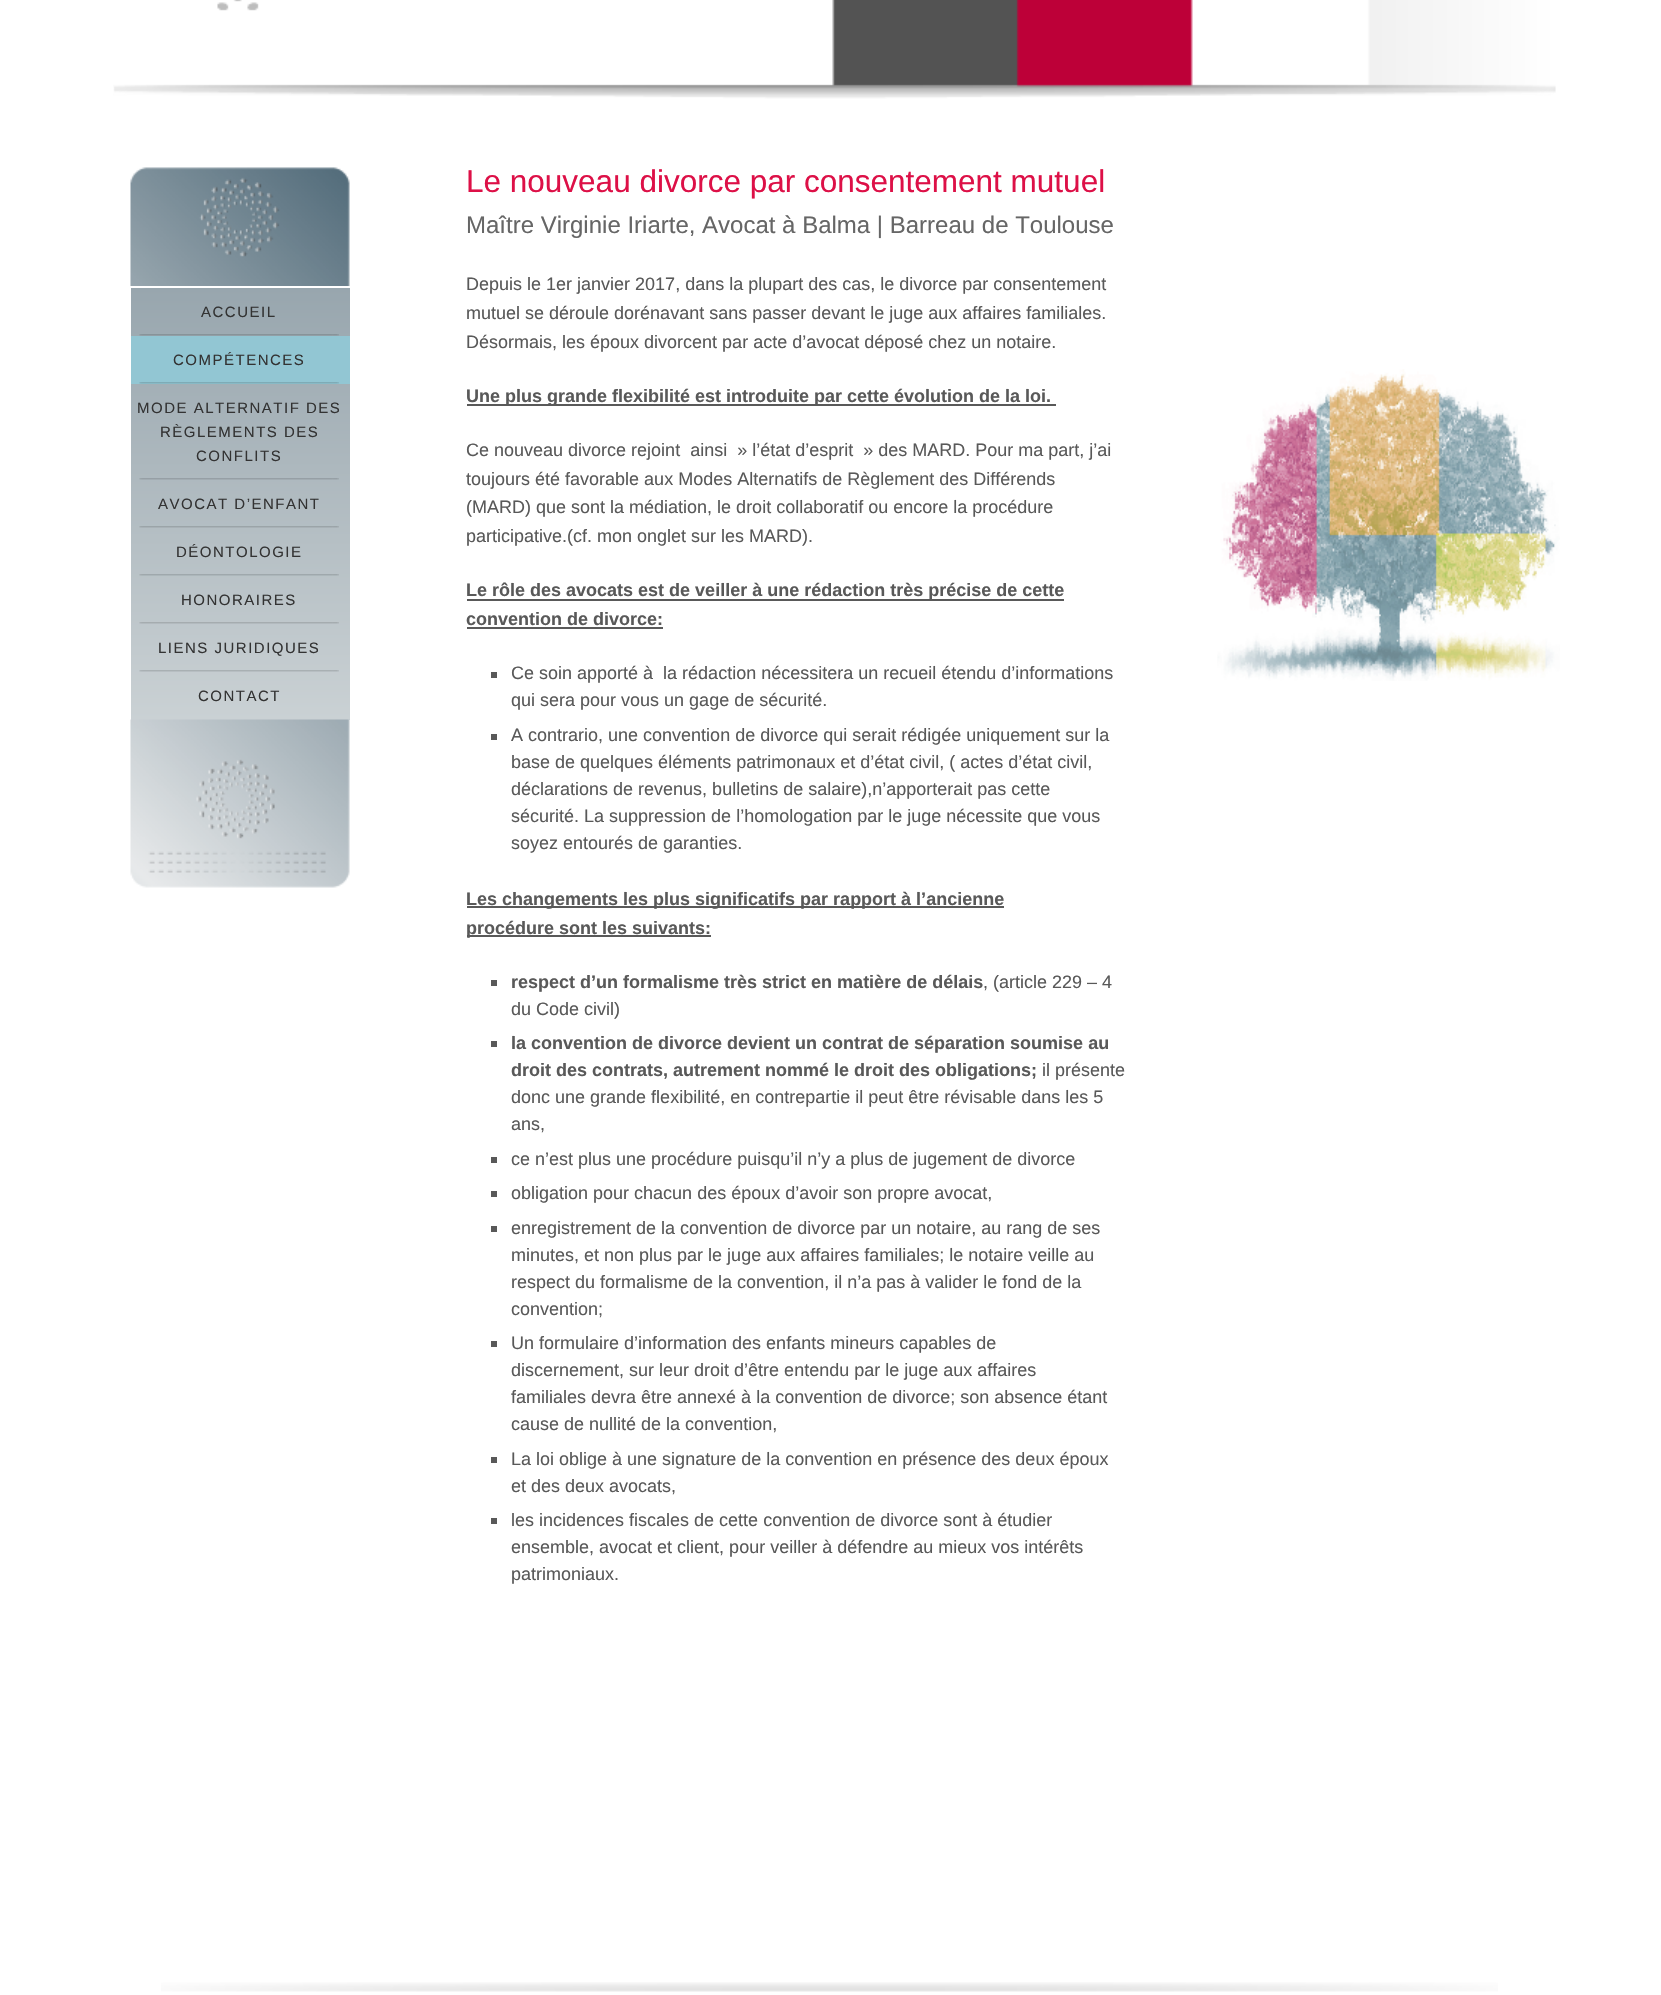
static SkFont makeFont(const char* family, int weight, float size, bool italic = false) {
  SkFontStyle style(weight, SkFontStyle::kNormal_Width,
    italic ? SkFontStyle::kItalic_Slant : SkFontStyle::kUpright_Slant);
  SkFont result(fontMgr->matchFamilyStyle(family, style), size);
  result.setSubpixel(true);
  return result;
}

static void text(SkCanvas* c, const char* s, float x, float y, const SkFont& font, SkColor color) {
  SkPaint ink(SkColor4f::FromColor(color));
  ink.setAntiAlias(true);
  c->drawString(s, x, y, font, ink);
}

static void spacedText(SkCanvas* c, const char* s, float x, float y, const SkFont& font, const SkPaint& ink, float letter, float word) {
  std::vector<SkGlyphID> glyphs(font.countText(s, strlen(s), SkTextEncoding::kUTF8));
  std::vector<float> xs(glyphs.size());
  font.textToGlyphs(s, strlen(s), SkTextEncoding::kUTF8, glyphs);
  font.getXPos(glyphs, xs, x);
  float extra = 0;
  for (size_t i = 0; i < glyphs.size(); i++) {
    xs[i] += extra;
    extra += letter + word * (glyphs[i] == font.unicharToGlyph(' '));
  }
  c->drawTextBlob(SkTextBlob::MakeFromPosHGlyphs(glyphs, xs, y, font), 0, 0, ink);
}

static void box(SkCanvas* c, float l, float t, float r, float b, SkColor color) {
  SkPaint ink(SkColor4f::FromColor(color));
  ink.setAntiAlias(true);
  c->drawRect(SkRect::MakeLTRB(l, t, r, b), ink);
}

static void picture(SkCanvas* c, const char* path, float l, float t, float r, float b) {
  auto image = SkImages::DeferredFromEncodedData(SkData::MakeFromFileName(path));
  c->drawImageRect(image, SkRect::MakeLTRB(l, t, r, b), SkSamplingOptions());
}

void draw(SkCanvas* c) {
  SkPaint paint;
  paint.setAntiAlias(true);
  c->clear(0xffffffff);
  picture(c, "img_01.png", 113, 0, 1556, 99);
  picture(c, "img_02.png", 130, 167, 350, 286);
  {
    const SkColor colors[] = {0xff98a6ae, 0xffcad1d4};
    const float stops[] = {0, 1};
    const SkPoint ends[] = {{240, 288}, {240, 720}};
    paint.setShader(SkGradientShader::MakeLinear(ends, colors, stops, 2, SkTileMode::kClamp));
    paint.setAlpha(255);
  }
  c->drawRect(SkRect::MakeLTRB(131, 288, 350, 720), paint);
  picture(c, "img_03.png", 139, 334, 339, 336);
  SkFont face1 = makeFont("Liberation Sans", 400, 15);
  paint.setShader(nullptr);
  paint.setColor(0xff333333);
  spacedText(c, "ACCUEIL", 201, 317, face1, paint, 1.5f, 0);
  box(c, 131, 336, 350, 384, 0xff92c6d3);
  picture(c, "img_04.png", 139, 382, 339, 384);
  spacedText(c, "COMPÉTENCES", 173, 365, face1, paint, 1.5f, 0);
  picture(c, "img_05.png", 139, 478, 339, 480);
  spacedText(c, "MODE ALTERNATIF DES", 137, 413, face1, paint, 1.5f, 0);
  spacedText(c, "RÈGLEMENTS DES", 160, 437, face1, paint, 1.5f, 0);
  spacedText(c, "CONFLITS", 196, 461, face1, paint, 1.5f, 0);
  picture(c, "img_06.png", 139, 526, 339, 528);
  spacedText(c, "AVOCAT D’ENFANT", 158, 509, face1, paint, 1.5f, 0);
  picture(c, "img_07.png", 139, 574, 339, 576);
  spacedText(c, "DÉONTOLOGIE", 176, 557, face1, paint, 1.5f, 0);
  picture(c, "img_08.png", 139, 622, 339, 624);
  spacedText(c, "HONORAIRES", 181, 605, face1, paint, 1.5f, 0);
  picture(c, "img_09.png", 139, 670, 339, 672);
  spacedText(c, "LIENS JURIDIQUES", 158, 653, face1, paint, 1.5f, 0);
  spacedText(c, "CONTACT", 198, 701, face1, paint, 1.5f, 0);
  picture(c, "img_10.png", 130, 719, 350, 888);
  SkFont face2 = makeFont("Liberation Sans", 400, 31.5f);
  text(c, "Le nouveau divorce par consentement mutuel", 466, 192, face2, 0xffdd1047);
  SkFont face3 = makeFont("Liberation Sans", 400, 24);
  text(c, "Maître Virginie Iriarte, Avocat à Balma | Barreau de Toulouse", 466, 233, face3, 0xff666666);
  SkFont face4 = makeFont("Liberation Sans", 400, 18);
  text(c, "Depuis le 1er janvier 2017, dans la plupart des cas, le divorce par consentement", 466, 290, face4, 0xff595959);
  text(c, "mutuel se déroule dorénavant sans passer devant le juge aux affaires familiales.", 466, 319, face4, 0xff595959);
  text(c, "Désormais, les époux divorcent par acte d’avocat déposé chez un notaire.", 466, 348, face4, 0xff595959);
  box(c, 467, 404, 1056, 406, 0xff595959);
  SkFont face5 = makeFont("Liberation Sans", 700, 18);
  text(c, "Une plus grande flexibilité est introduite par cette évolution de la loi.", 466, 402, face5, 0xff595959);
  text(c, "Ce nouveau divorce rejoint  ainsi  » l’état d’esprit  » des MARD. Pour ma part, j’ai", 466, 456, face4, 0xff595959);
  text(c, "toujours été favorable aux Modes Alternatifs de Règlement des Différends", 466, 485, face4, 0xff595959);
  text(c, "(MARD) que sont la médiation, le droit collaboratif ou encore la procédure", 466, 513, face4, 0xff595959);
  text(c, "participative.(cf. mon onglet sur les MARD).", 466, 542, face4, 0xff595959);
  box(c, 467, 599, 1064, 601, 0xff595959);
  text(c, "Le rôle des avocats est de veiller à une rédaction très précise de cette", 466, 596, face5, 0xff595959);
  text(c, "convention de divorce:", 466, 625, face5, 0xff595959);
  box(c, 467, 627, 663, 629, 0xff595959);
  box(c, 491, 672, 497, 678, 0xff595959);
  text(c, "Ce soin apporté à  la rédaction nécessitera un recueil étendu d’informations", 511, 679, face4, 0xff595959);
  text(c, "qui sera pour vous un gage de sécurité.", 511, 706, face4, 0xff595959);
  box(c, 491, 734, 497, 740, 0xff595959);
  text(c, "A contrario, une convention de divorce qui serait rédigée uniquement sur la", 511, 741, face4, 0xff595959);
  text(c, "base de quelques éléments patrimonaux et d’état civil, ( actes d’état civil,", 511, 768, face4, 0xff595959);
  text(c, "déclarations de revenus, bulletins de salaire),n’apporterait pas cette", 511, 795, face4, 0xff595959);
  text(c, "sécurité. La suppression de l’homologation par le juge nécessite que vous", 511, 822, face4, 0xff595959);
  text(c, "soyez entourés de garanties.", 511, 849, face4, 0xff595959);
  box(c, 467, 906, 1004, 908, 0xff595959);
  text(c, "Les changements les plus significatifs par rapport à l’ancienne", 466, 905, face5, 0xff595959);
  box(c, 467, 935, 711, 937, 0xff595959);
  text(c, "procédure sont les suivants:", 466, 934, face5, 0xff595959);
  box(c, 491, 980, 497, 986, 0xff595959);
  text(c, "respect d’un formalisme très strict en matière de délais", 511, 988, face5, 0xff595959);
  text(c, ", (article 229 – 4", 983, 988, face4, 0xff595959);
  text(c, "du Code civil)", 511, 1015, face4, 0xff595959);
  box(c, 491, 1041, 497, 1047, 0xff595959);
  text(c, "la convention de divorce devient un contrat de séparation soumise au", 511, 1049, face5, 0xff595959);
  text(c, "droit des contrats, autrement nommé le droit des obligations;", 511, 1076, face5, 0xff595959);
  text(c, "il présente", 1042, 1076, face4, 0xff595959);
  text(c, "donc une grande flexibilité, en contrepartie il peut être révisable dans les 5", 511, 1103, face4, 0xff595959);
  text(c, "ans,", 511, 1130, face4, 0xff595959);
  box(c, 491, 1157, 497, 1163, 0xff595959);
  text(c, "ce n’est plus une procédure puisqu’il n’y a plus de jugement de divorce", 511, 1165, face4, 0xff595959);
  box(c, 491, 1191, 497, 1197, 0xff595959);
  text(c, "obligation pour chacun des époux d’avoir son propre avocat,", 511, 1199, face4, 0xff595959);
  box(c, 491, 1226, 497, 1232, 0xff595959);
  text(c, "enregistrement de la convention de divorce par un notaire, au rang de ses", 511, 1234, face4, 0xff595959);
  text(c, "minutes, et non plus par le juge aux affaires familiales; le notaire veille au", 511, 1261, face4, 0xff595959);
  text(c, "respect du formalisme de la convention, il n’a pas à valider le fond de la", 511, 1288, face4, 0xff595959);
  text(c, "convention;", 511, 1315, face4, 0xff595959);
  box(c, 491, 1341, 497, 1347, 0xff595959);
  text(c, "Un formulaire d’information des enfants mineurs capables de", 511, 1349, face4, 0xff595959);
  text(c, "discernement, sur leur droit d’être entendu par le juge aux affaires", 511, 1376, face4, 0xff595959);
  text(c, "familiales devra être annexé à la convention de divorce; son absence étant", 511, 1403, face4, 0xff595959);
  text(c, "cause de nullité de la convention,", 511, 1430, face4, 0xff595959);
  box(c, 491, 1457, 497, 1463, 0xff595959);
  text(c, "La loi oblige à une signature de la convention en présence des deux époux", 511, 1465, face4, 0xff595959);
  text(c, "et des deux avocats,", 511, 1492, face4, 0xff595959);
  box(c, 491, 1518, 497, 1524, 0xff595959);
  text(c, "les incidences fiscales de cette convention de divorce sont à étudier", 511, 1526, face4, 0xff595959);
  text(c, "ensemble, avocat et client, pour veiller à défendre au mieux vos intérêts", 511, 1553, face4, 0xff595959);
  text(c, "patrimoniaux.", 511, 1580, face4, 0xff595959);
  picture(c, "img_11.png", 1217, 369, 1560, 681);
  picture(c, "img_12.png", 161, 1982, 1498, 1992);
}
